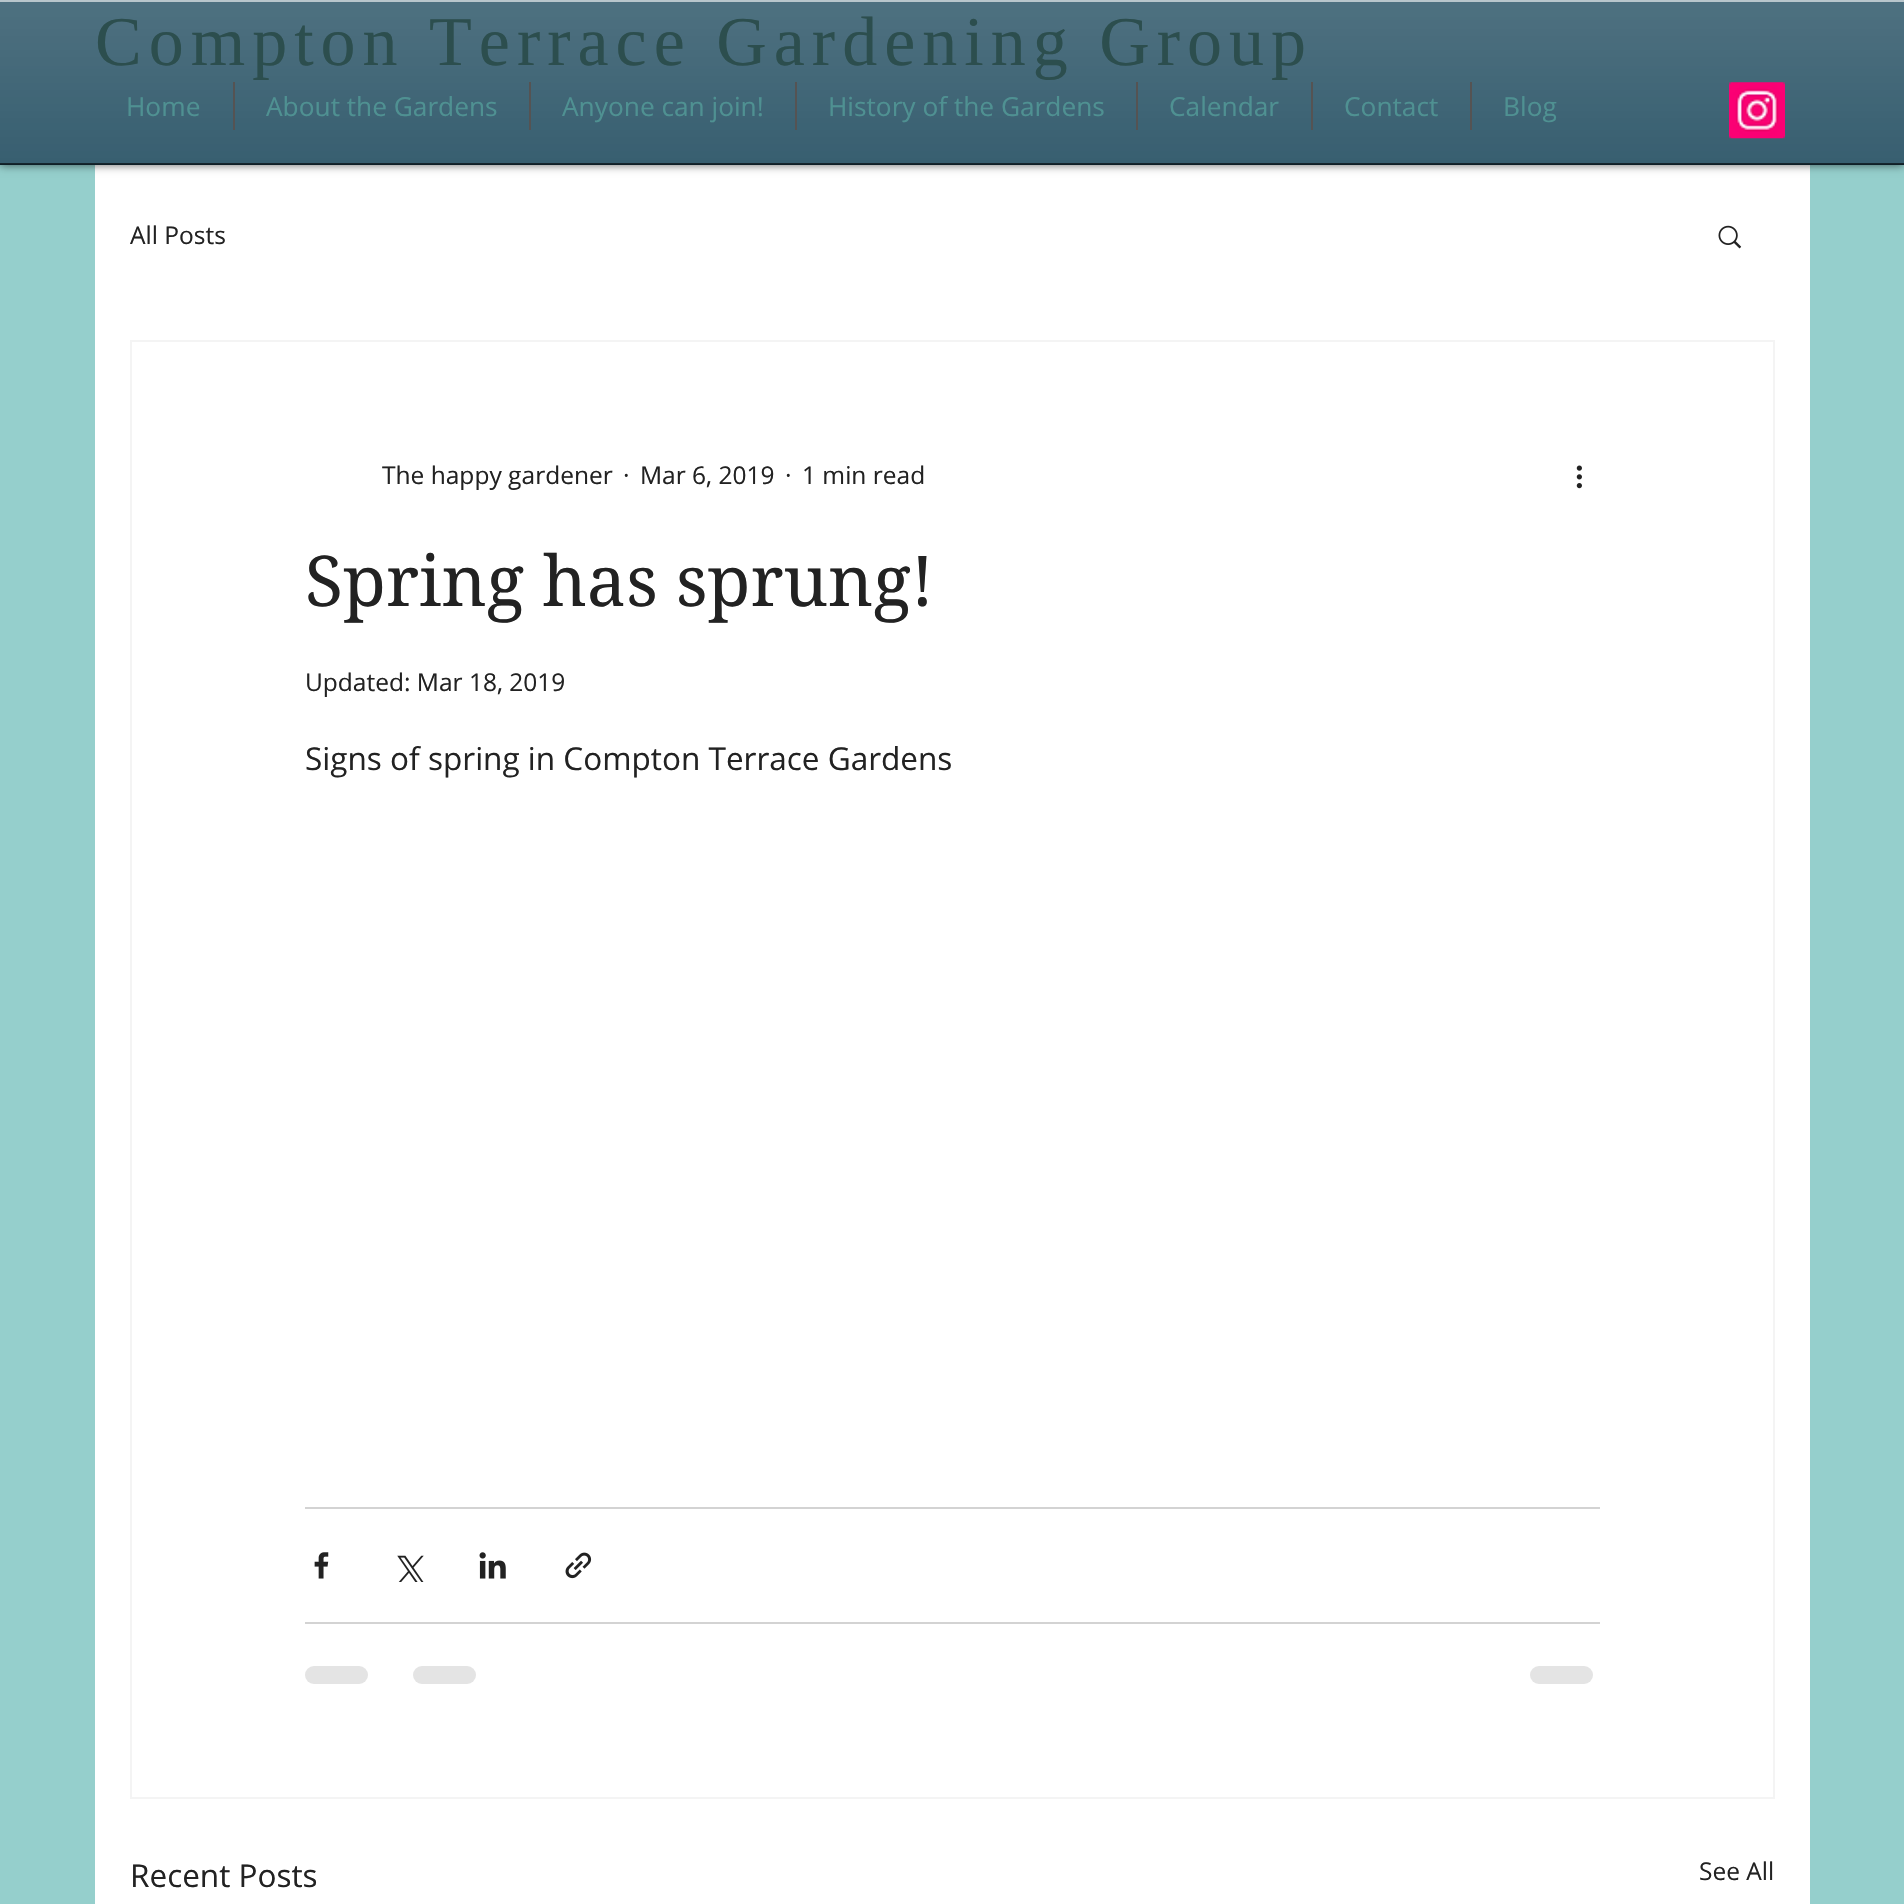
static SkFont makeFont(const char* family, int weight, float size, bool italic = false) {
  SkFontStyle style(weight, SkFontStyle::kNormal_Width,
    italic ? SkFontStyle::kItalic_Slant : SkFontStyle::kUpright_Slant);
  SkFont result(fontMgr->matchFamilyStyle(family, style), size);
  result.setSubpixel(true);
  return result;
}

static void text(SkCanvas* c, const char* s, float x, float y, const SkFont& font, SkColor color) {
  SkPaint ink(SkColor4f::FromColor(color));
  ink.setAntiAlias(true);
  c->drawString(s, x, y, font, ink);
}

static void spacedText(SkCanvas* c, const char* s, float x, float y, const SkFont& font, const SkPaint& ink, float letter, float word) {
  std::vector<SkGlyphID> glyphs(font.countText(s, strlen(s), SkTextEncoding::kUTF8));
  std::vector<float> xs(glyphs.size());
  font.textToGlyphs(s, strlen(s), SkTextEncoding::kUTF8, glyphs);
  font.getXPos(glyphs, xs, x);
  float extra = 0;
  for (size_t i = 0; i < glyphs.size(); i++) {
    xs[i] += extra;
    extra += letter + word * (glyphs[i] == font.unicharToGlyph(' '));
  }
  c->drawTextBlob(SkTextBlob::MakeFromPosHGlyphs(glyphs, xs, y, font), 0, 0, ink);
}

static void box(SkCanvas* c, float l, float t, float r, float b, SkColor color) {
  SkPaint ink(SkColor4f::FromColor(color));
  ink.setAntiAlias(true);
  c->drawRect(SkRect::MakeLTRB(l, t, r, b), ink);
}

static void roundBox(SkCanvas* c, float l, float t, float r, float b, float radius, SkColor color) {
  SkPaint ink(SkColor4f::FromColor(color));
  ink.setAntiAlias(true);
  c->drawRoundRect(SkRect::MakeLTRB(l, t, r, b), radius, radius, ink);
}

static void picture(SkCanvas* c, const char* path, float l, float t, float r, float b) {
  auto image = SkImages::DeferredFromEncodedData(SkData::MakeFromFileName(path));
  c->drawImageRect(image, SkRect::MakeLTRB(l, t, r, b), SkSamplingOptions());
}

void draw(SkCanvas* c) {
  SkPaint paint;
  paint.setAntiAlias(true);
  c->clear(0xff95cfcc);
  box(c, 95, 165, 1810, 1904, 0xffffffff);
  paint.setColor(0x99000000);
  paint.setMaskFilter(SkMaskFilter::MakeBlur(kNormal_SkBlurStyle, 4.5f));
  c->drawRect(SkRect::MakeLTRB(0, 0, 1904, 165), paint);
  paint.setMaskFilter(nullptr);
  box(c, 0, 2, 1904, 165, 0xff103f54);
  picture(c, "img_01.png", 0, 2, 1904, 165);
  box(c, 0, 163, 1904, 165, 0x99000000);
  box(c, 0, 0, 1904, 2, 0xffb8c6cc);
  SkFont face1 = makeFont("Liberation Serif", 400, 70);
  paint.setColor(0xff2c4e4e);
  spacedText(c, "Compton Terrace Gardening Group", 95, 65, face1, paint, 7, 0);
  SkFont face2 = makeFont("Open Sans", 400, 26.25f);
  text(c, "Home", 126, 116, face2, 0xff4f9192);
  box(c, 233, 82, 235, 130, 0xff555353);
  text(c, "About the Gardens", 266, 116, face2, 0xff4f9192);
  box(c, 529, 82, 531, 130, 0xff555353);
  text(c, "Anyone can join!", 562, 116, face2, 0xff4f9192);
  box(c, 795, 82, 797, 130, 0xff555353);
  text(c, "History of the Gardens", 828, 116, face2, 0xff4f9192);
  box(c, 1136, 82, 1138, 130, 0xff555353);
  text(c, "Calendar", 1169, 116, face2, 0xff4f9192);
  box(c, 1311, 82, 1313, 130, 0xff555353);
  text(c, "Contact", 1344, 116, face2, 0xff4f9192);
  box(c, 1470, 82, 1472, 130, 0xff555353);
  text(c, "Blog", 1503, 116, face2, 0xff4f9192);
  picture(c, "img_02.png", 1729, 82, 1785, 139);
  SkFont face3 = makeFont("Open Sans", 400, 24.5f);
  text(c, "All Posts", 130, 244, face3, 0xff222222);
  picture(c, "img_03.png", 1718, 225, 1742, 249);
  paint.setStyle(SkPaint::kStroke_Style);
  paint.setStrokeWidth(2);
  paint.setColor(0xfff4f4f4);
  c->drawRect(SkRect::MakeLTRB(131, 341, 1774, 1798), paint);
  text(c, "The happy gardener", 382, 484, face3, 0xff222222);
  text(c, "·", 623, 484, face3, 0xff222222);
  text(c, "Mar 6, 2019", 640, 484, face3, 0xff222222);
  text(c, "·", 785, 484, face3, 0xff222222);
  text(c, "1 min read", 802, 484, face3, 0xff222222);
  picture(c, "img_04.png", 1576, 465, 1582, 489);
  SkFont face4 = makeFont("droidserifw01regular", 400, 70);
  text(c, "Spring has sprung!", 305, 606, face4, 0xff222222);
  text(c, "Updated: Mar 18, 2019", 305, 691, face3, 0xff222222);
  SkFont face5 = makeFont("Open Sans", 400, 31.5f);
  text(c, "Signs of spring in Compton Terrace Gardens", 305, 770, face5, 0xff222222);
  box(c, 305, 1507, 1600, 1509, 0xffd3d3d3);
  picture(c, "img_05.png", 314, 1552, 329, 1579);
  picture(c, "img_06.png", 397, 1555, 424, 1582);
  picture(c, "img_07.png", 479, 1552, 506, 1579);
  picture(c, "img_08.png", 565, 1552, 592, 1579);
  box(c, 305, 1622, 1600, 1624, 0xffd3d3d3);
  roundBox(c, 305, 1666, 368, 1684, 9, 0xffe4e4e4);
  roundBox(c, 413, 1666, 476, 1684, 9, 0xffe4e4e4);
  roundBox(c, 1530, 1666, 1593, 1684, 9, 0xffe4e4e4);
  text(c, "Recent Posts", 130, 1887, face5, 0xff222222);
  text(c, "See All", 1699, 1880, face3, 0xff222222);
}
